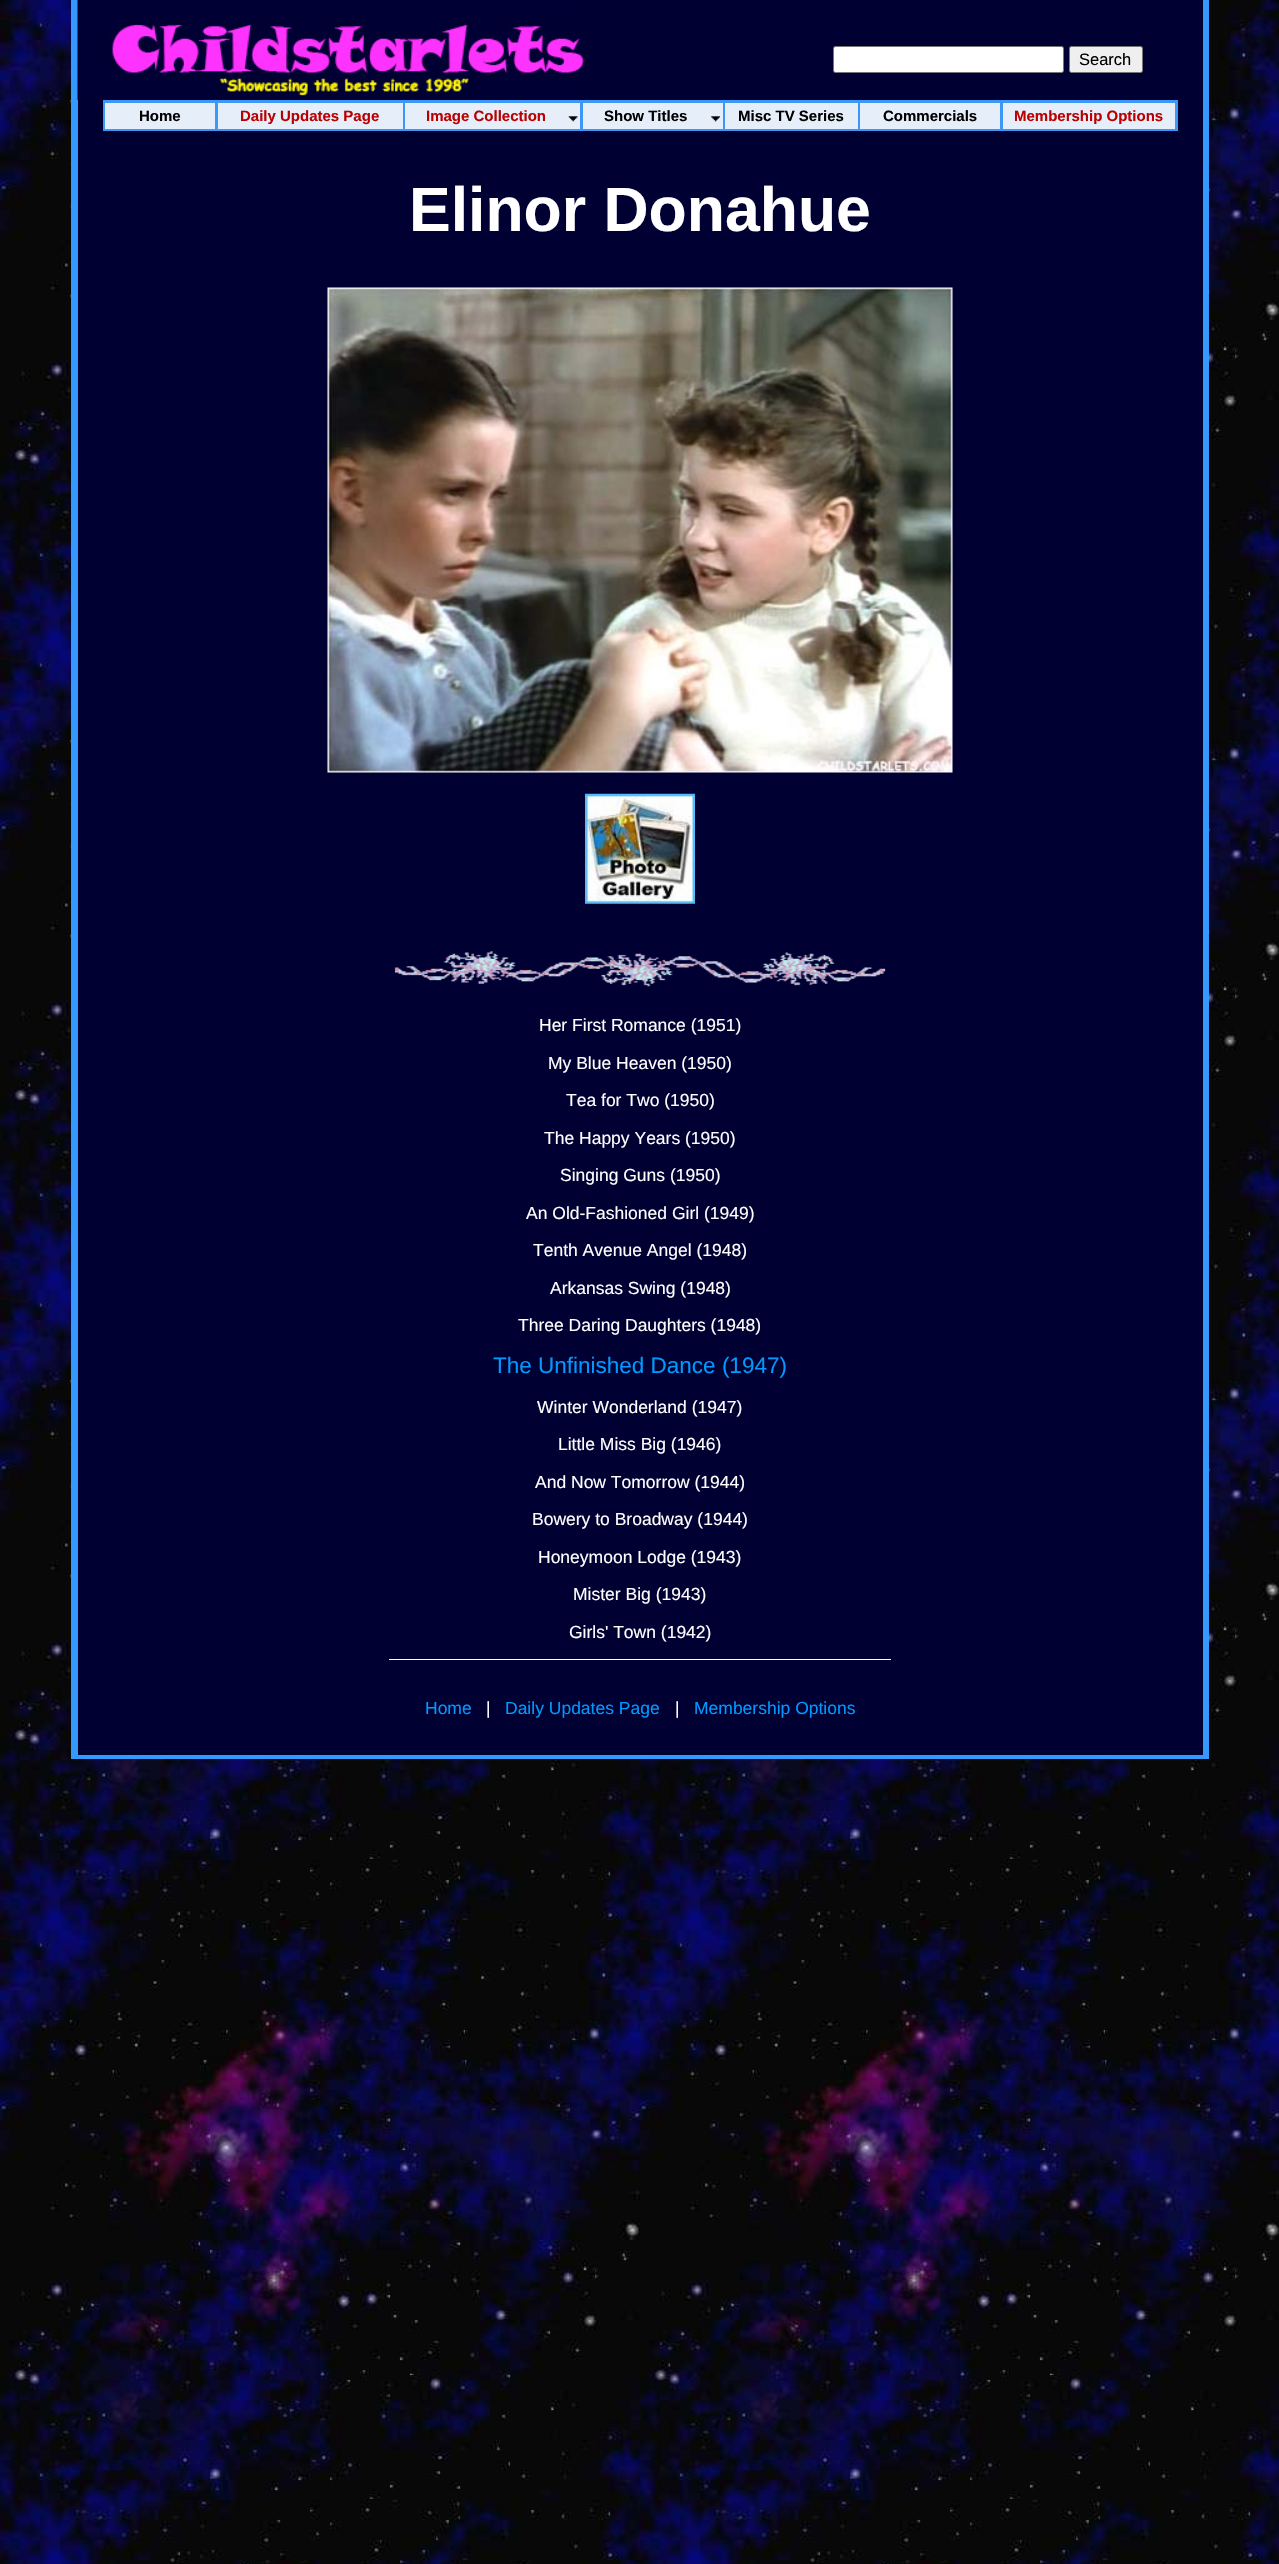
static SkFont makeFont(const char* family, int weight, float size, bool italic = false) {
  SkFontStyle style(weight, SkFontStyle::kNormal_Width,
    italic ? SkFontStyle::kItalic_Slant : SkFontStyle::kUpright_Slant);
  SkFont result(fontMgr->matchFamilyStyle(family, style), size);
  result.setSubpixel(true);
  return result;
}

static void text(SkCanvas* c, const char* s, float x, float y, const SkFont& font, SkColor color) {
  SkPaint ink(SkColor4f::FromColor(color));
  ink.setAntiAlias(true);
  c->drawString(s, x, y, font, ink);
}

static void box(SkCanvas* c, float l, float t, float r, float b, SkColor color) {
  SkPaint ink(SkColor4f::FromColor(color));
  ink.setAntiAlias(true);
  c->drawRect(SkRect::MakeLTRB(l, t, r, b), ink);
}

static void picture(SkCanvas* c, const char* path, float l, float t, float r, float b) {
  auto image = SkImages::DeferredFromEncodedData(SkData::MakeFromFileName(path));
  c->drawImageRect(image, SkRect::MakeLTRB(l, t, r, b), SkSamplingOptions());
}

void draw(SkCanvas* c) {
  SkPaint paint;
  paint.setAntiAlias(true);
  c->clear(0xffffffff);
  picture(c, "img_01.png", 0, 0, 1279, 2564);
  box(c, 71, 0, 78, 1759, 0xff3399ff);
  box(c, 78, 0, 1203, 1755, 0xff000033);
  picture(c, "img_02.png", 77, 0, 588, 100);
  paint.setColor(0xffffffff);
  c->drawRoundRect(SkRect::MakeLTRB(833.5f, 46.5f, 1063.5f, 72.5f), 2, 2, paint);
  paint.setStyle(SkPaint::kStroke_Style);
  paint.setStrokeWidth(1);
  paint.setColor(0xff767676);
  c->drawRoundRect(SkRect::MakeLTRB(833.5f, 46.5f, 1063.5f, 72.5f), 2, 2, paint);
  paint.setStyle(SkPaint::kFill_Style);
  paint.setColor(0xffefefef);
  c->drawRoundRect(SkRect::MakeLTRB(1069.5f, 46.5f, 1142.5f, 72.5f), 2, 2, paint);
  paint.setStyle(SkPaint::kStroke_Style);
  paint.setColor(0xff767676);
  c->drawRoundRect(SkRect::MakeLTRB(1069.5f, 46.5f, 1142.5f, 72.5f), 2, 2, paint);
  SkFont face1 = makeFont("Liberation Sans", 400, 16.5f);
  text(c, "Search", 1079, 65, face1, 0xff000000);
  box(c, 103, 100, 1178, 131, 0xff3d97f7);
  box(c, 105, 103, 215, 129, 0xffe6eff9);
  SkFont face2 = makeFont("Liberation Sans", 700, 15);
  text(c, "Home", 139, 121, face2, 0xff000000);
  box(c, 218, 103, 403, 129, 0xffe6eff9);
  text(c, "Daily Updates Page", 240, 121, face2, 0xffbb0000);
  box(c, 405, 103, 580, 129, 0xffe6eff9);
  text(c, "Image Collection", 426, 121, face2, 0xffbb0000);
  picture(c, "img_03.png", 568, 116, 578, 122);
  box(c, 583, 103, 723, 129, 0xffe6eff9);
  text(c, "Show Titles", 604, 121, face2, 0xff000000);
  picture(c, "img_04.png", 711, 116, 720, 122);
  box(c, 725, 103, 858, 129, 0xffe6eff9);
  text(c, "Misc TV Series", 738, 121, face2, 0xff000000);
  box(c, 860, 103, 1000, 129, 0xffe6eff9);
  text(c, "Commercials", 883, 121, face2, 0xff000000);
  box(c, 1003, 103, 1175, 129, 0xffe6eff9);
  text(c, "Membership Options", 1014, 121, face2, 0xffbb0000);
  SkFont face3 = makeFont("Liberation Sans", 700, 62.5f);
  text(c, "Elinor Donahue", 409, 231, face3, 0xffffffff);
  picture(c, "img_05.png", 327, 287, 953, 773);
  picture(c, "img_06.png", 585, 793, 695, 904);
  picture(c, "img_07.png", 394, 951, 886, 987);
  SkFont face4 = makeFont("Liberation Sans", 400, 17.5f);
  text(c, "Her First Romance (1951)", 539, 1031, face4, 0xffffffff);
  text(c, "My Blue Heaven (1950)", 548, 1069, face4, 0xffffffff);
  text(c, "Tea for Two (1950)", 566, 1106, face4, 0xffffffff);
  text(c, "The Happy Years (1950)", 544, 1144, face4, 0xffffffff);
  text(c, "Singing Guns (1950)", 560, 1181, face4, 0xffffffff);
  text(c, "An Old-Fashioned Girl (1949)", 526, 1219, face4, 0xffffffff);
  text(c, "Tenth Avenue Angel (1948)", 533, 1256, face4, 0xffffffff);
  text(c, "Arkansas Swing (1948)", 550, 1294, face4, 0xffffffff);
  text(c, "Three Daring Daughters (1948)", 518, 1331, face4, 0xffffffff);
  SkFont face5 = makeFont("Liberation Sans", 400, 22.5f);
  text(c, "The Unfinished Dance (1947)", 493, 1373, face5, 0xff0099ff);
  text(c, "Winter Wonderland (1947)", 537, 1413, face4, 0xffffffff);
  text(c, "Little Miss Big (1946)", 558, 1450, face4, 0xffffffff);
  text(c, "And Now Tomorrow (1944)", 535, 1488, face4, 0xffffffff);
  text(c, "Bowery to Broadway (1944)", 532, 1525, face4, 0xffffffff);
  text(c, "Honeymoon Lodge (1943)", 538, 1563, face4, 0xffffffff);
  text(c, "Mister Big (1943)", 573, 1600, face4, 0xffffffff);
  text(c, "Girls' Town (1942)", 569, 1638, face4, 0xffffffff);
  box(c, 389, 1659, 891, 1660, 0xffffffff);
  text(c, "Home", 425, 1714, face4, 0xff0099ff);
  text(c, "|", 486, 1714, face4, 0xffffffff);
  text(c, "Daily Updates Page", 505, 1714, face4, 0xff0099ff);
  text(c, "|", 675, 1714, face4, 0xffffffff);
  text(c, "Membership Options", 694, 1714, face4, 0xff0099ff);
  box(c, 1203, 0, 1209, 1755, 0xff3399ff);
  box(c, 78, 1755, 1209, 1759, 0xff3399ff);
}
